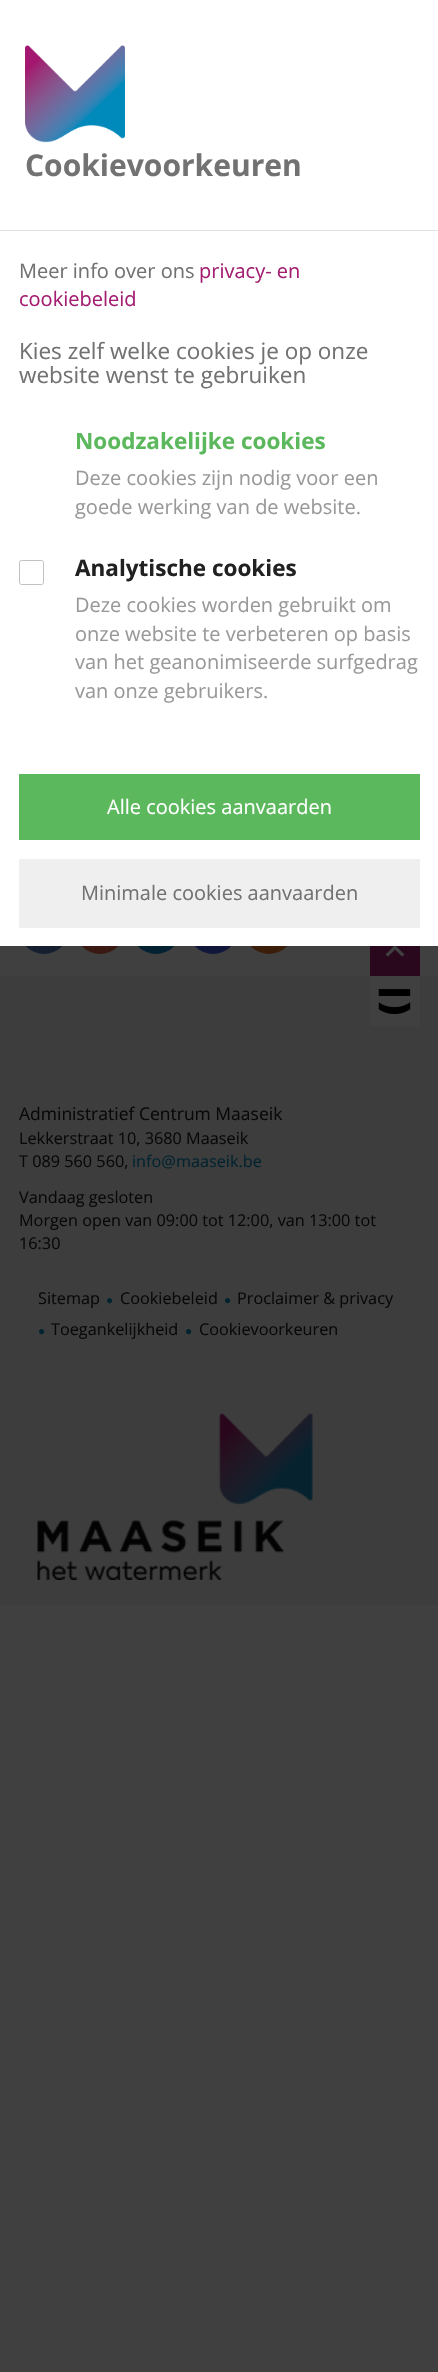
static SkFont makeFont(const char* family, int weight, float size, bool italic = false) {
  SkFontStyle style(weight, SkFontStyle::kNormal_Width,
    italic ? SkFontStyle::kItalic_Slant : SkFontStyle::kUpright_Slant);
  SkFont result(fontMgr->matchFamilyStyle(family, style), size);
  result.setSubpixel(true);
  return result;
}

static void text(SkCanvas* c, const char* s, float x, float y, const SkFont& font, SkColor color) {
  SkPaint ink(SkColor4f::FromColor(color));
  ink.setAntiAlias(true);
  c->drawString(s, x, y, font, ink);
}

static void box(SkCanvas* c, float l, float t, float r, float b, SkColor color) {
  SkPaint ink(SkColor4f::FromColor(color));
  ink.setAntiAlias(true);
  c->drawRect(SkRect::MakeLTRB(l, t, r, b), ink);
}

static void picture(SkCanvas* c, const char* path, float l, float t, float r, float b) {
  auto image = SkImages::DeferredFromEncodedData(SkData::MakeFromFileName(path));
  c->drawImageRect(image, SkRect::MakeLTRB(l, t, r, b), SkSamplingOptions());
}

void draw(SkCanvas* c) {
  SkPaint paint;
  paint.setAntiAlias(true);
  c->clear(0xff404040);
  paint.setColor(0xff151f30);
  c->drawCircle(44, 929, 25, paint);
  paint.setColor(0xff3a1913);
  c->drawCircle(100, 929, 25, paint);
  paint.setColor(0xff042132);
  c->drawCircle(156, 929, 25, paint);
  paint.setColor(0xff10173a);
  c->drawCircle(213, 929, 25, paint);
  paint.setColor(0xff3b1e09);
  c->drawCircle(269, 929, 25, paint);
  box(c, 370, 946, 420, 976, 0xff29081d);
  paint.setColor(0xff404040);
  c->drawPath(SkPathBuilder().moveTo(388, 956.5f).lineTo(385.5f, 954.5f).lineTo(395, 945).lineTo(404.5f, 954.5f).lineTo(402, 956.5f).lineTo(395, 949.5f).close().detach(), paint);
  box(c, 0, 0, 438, 946, 0xffffffff);
  box(c, 0, 230, 438, 231, 0xffe2e2e2);
  picture(c, "img_01.png", 25, 45, 125, 143);
  SkFont face1 = makeFont("Open Sans", 700, 30);
  text(c, "Cookievoorkeuren", 25, 176, face1, 0xff727272);
  SkFont face2 = makeFont("Open Sans", 400, 20);
  text(c, "Meer info over ons", 19, 278, face2, 0xff727272);
  text(c, "privacy- en", 199, 278, face2, 0xffa41f72);
  text(c, "cookiebeleid", 19, 306, face2, 0xffa41f72);
  SkFont face3 = makeFont("Open Sans", 400, 22.5f);
  text(c, "Kies zelf welke cookies je op onze", 19, 359, face3, 0xff727272);
  text(c, "website wenst te gebruiken", 19, 383, face3, 0xff727272);
  SkFont face4 = makeFont("Open Sans", 700, 22.5f);
  text(c, "Noodzakelijke cookies", 75, 449, face4, 0xff5cb85c);
  text(c, "Deze cookies zijn nodig voor een", 75, 485, face2, 0xff999999);
  text(c, "goede werking van de website.", 75, 514, face2, 0xff999999);
  paint.setStyle(SkPaint::kStroke_Style);
  paint.setStrokeWidth(1);
  paint.setColor(0xffc1c1c1);
  c->drawRoundRect(SkRect::MakeLTRB(19.5f, 560.5f, 43.5f, 584.5f), 2, 2, paint);
  text(c, "Analytische cookies", 75, 576, face4, 0xff212121);
  text(c, "Deze cookies worden gebruikt om", 75, 612, face2, 0xff999999);
  text(c, "onze website te verbeteren op basis", 75, 641, face2, 0xff999999);
  text(c, "van het geanonimiseerde surfgedrag", 75, 669, face2, 0xff999999);
  text(c, "van onze gebruikers.", 75, 698, face2, 0xff999999);
  box(c, 19, 774, 420, 840, 0xff5cb85c);
  text(c, "Alle cookies aanvaarden", 107, 814, face2, 0xffffffff);
  box(c, 19, 859, 420, 928, 0xffefefef);
  text(c, "Minimale cookies aanvaarden", 81, 900, face2, 0xff727272);
  box(c, 0, 976, 438, 1605, 0xff3d3d3d);
  box(c, 370, 976, 420, 1026, 0xff404040);
  picture(c, "img_02.png", 378, 989, 411, 1015);
  SkFont face5 = makeFont("Open Sans", 400, 17.5f);
  text(c, "Administratief Centrum Maaseik", 19, 1120, face5, 0xff080808);
  SkFont face6 = makeFont("Open Sans", 400, 16.25f);
  text(c, "Lekkerstraat 10, 3680 Maaseik", 19, 1144, face6, 0xff080808);
  text(c, "T 089 560 560,", 19, 1167, face6, 0xff080808);
  text(c, "info@maaseik.be", 132, 1167, face6, 0xff00232f);
  text(c, "Vandaag gesloten", 19, 1203, face6, 0xff080808);
  text(c, "Morgen open van 09:00 tot 12:00, van 13:00 tot", 19, 1226, face6, 0xff080808);
  text(c, "16:30", 19, 1249, face6, 0xff080808);
  text(c, "Sitemap", 38, 1304, face6, 0xff080808);
  SkFont face7 = makeFont("Liberation Serif", 400, 12);
  text(c, "●", 106, 1304, face7, 0xff00232f);
  text(c, "Cookiebeleid", 120, 1304, face6, 0xff080808);
  text(c, "●", 224, 1304, face7, 0xff00232f);
  text(c, "Proclaimer & privacy", 237, 1304, face6, 0xff080808);
  text(c, "●", 38, 1335, face7, 0xff00232f);
  text(c, "Toegankelijkheid", 51, 1335, face6, 0xff080808);
  text(c, "●", 185, 1335, face7, 0xff00232f);
  text(c, "Cookievoorkeuren", 199, 1335, face6, 0xff080808);
  picture(c, "img_03.png", 37, 1413, 313, 1580);
}
